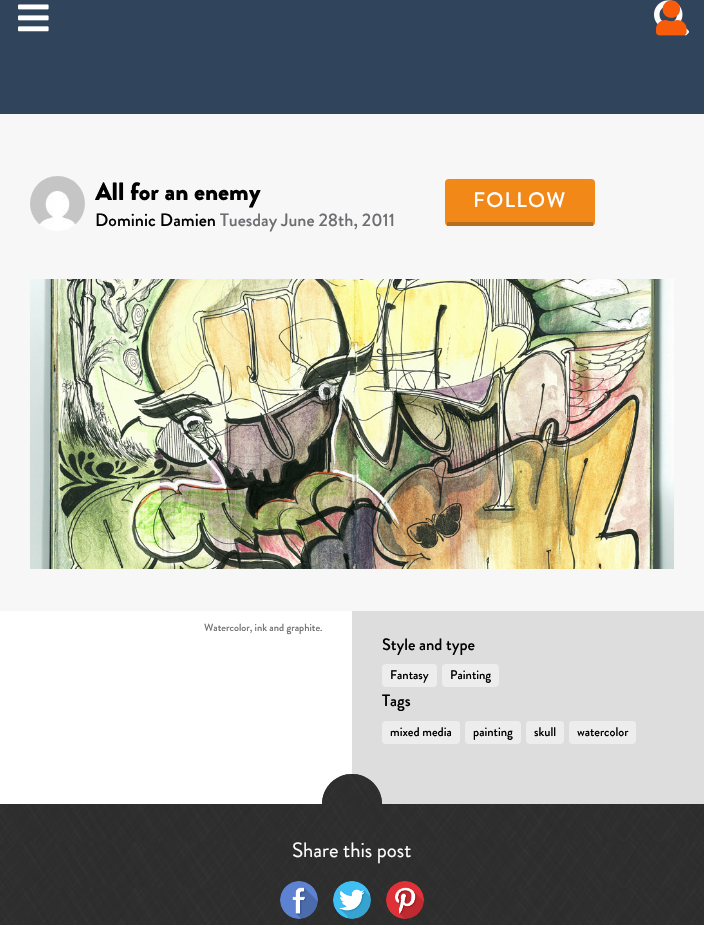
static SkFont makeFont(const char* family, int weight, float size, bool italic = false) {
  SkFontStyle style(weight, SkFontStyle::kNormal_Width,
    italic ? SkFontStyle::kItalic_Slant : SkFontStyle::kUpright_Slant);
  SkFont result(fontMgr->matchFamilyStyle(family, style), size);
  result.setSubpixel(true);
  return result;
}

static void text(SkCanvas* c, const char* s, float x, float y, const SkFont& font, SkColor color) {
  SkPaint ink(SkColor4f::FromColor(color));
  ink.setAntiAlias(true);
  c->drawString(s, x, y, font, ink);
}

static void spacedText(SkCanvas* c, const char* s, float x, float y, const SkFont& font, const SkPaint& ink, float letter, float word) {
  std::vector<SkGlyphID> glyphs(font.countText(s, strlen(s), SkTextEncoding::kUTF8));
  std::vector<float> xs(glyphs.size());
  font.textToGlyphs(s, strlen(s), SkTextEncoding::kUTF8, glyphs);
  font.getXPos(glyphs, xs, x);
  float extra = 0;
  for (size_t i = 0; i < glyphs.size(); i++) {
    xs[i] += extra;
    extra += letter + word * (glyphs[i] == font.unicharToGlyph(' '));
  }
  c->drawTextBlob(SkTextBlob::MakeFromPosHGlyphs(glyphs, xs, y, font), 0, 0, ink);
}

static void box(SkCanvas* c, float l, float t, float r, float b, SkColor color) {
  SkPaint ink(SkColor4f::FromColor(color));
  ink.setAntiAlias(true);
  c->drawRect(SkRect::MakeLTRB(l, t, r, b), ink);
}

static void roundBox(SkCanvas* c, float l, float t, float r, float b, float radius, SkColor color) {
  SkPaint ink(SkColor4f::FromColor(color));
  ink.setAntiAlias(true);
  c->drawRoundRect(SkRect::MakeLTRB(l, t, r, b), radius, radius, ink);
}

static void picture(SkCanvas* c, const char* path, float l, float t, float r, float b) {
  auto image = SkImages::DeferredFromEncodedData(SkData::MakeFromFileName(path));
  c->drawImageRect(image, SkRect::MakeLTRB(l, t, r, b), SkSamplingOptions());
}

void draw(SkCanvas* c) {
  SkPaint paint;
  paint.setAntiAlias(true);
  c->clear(0xff30445c);
  picture(c, "img_01.png", 654, 0, 689, 36);
  picture(c, "img_02.png", 18, 4, 49, 32);
  picture(c, "img_03.png", 656, 0, 687, 36);
  box(c, 0, 611, 352, 804, 0xffffffff);
  box(c, 0, 114, 704, 611, 0xfff7f7f7);
  picture(c, "img_04.png", 30, 176, 85, 231);
  SkFont face1 = makeFont("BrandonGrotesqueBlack", 900, 25);
  text(c, "All for an enemy", 95, 200, face1, 0xff000000);
  SkFont face2 = makeFont("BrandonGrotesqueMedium", 500, 18);
  text(c, "Dominic Damien", 95, 226, face2, 0xff000000);
  text(c, "Tuesday June 28th, 2011", 220, 226, face2, 0xff6d6e71);
  roundBox(c, 445, 179, 595, 226, 4, 0xfff18818);
  box(c, 447, 222, 593, 226, 0xffb66e1a);
  SkFont face3 = makeFont("BrandonGrotesqueMedium", 500, 21);
  paint.setColor(0xffffffff);
  spacedText(c, "FOLLOW", 473, 207, face3, paint, 1.25f, 0);
  picture(c, "img_05.png", 30, 279, 674, 569);
  SkFont face4 = makeFont("BrandonGrotesqueMedium", 500, 10.4f);
  text(c, "Watercolor, ink and graphite.", 204, 631, face4, 0xff737373);
  box(c, 352, 611, 704, 804, 0xffdddddd);
  SkFont face5 = makeFont("BrandonGrotesqueMedium", 500, 16.5f);
  text(c, "Style and type", 382, 650, face5, 0xff000000);
  roundBox(c, 382, 664, 437, 687, 4, 0xffededed);
  SkFont face6 = makeFont("BrandonGrotesqueMedium", 500, 12.5f);
  text(c, "Fantasy", 390, 679, face6, 0xff000000);
  roundBox(c, 442, 664, 499, 687, 4, 0xffededed);
  text(c, "Painting", 450, 679, face6, 0xff000000);
  text(c, "Tags", 382, 706, face5, 0xff000000);
  roundBox(c, 382, 721, 460, 744, 4, 0xffededed);
  text(c, "mixed media", 390, 736, face6, 0xff000000);
  roundBox(c, 465, 721, 521, 744, 4, 0xffededed);
  text(c, "painting", 473, 736, face6, 0xff000000);
  roundBox(c, 526, 721, 564, 744, 4, 0xffededed);
  text(c, "skull", 534, 736, face6, 0xff000000);
  roundBox(c, 569, 721, 636, 744, 4, 0xffededed);
  text(c, "watercolor", 577, 736, face6, 0xff000000);
  picture(c, "img_06.png", 0, 804, 704, 925);
  paint.setColor(0xff2b2b2b);
  c->drawPath(SkPathBuilder().moveTo(352, 774).cubicTo(368.5f, 774, 382, 787.5f, 382, 804).lineTo(322, 804).cubicTo(322, 787.5f, 335.5f, 774, 352, 774).close().detach(), paint);
  picture(c, "img_07.png", 322, 774, 382, 804);
  SkFont face7 = makeFont("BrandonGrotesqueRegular", 400, 20.75f);
  text(c, "Share this post", 292, 857, face7, 0xffffffff);
  picture(c, "img_08.png", 280, 881, 318, 919);
  picture(c, "img_09.png", 333, 881, 371, 919);
  picture(c, "img_10.png", 386, 881, 424, 919);
}
